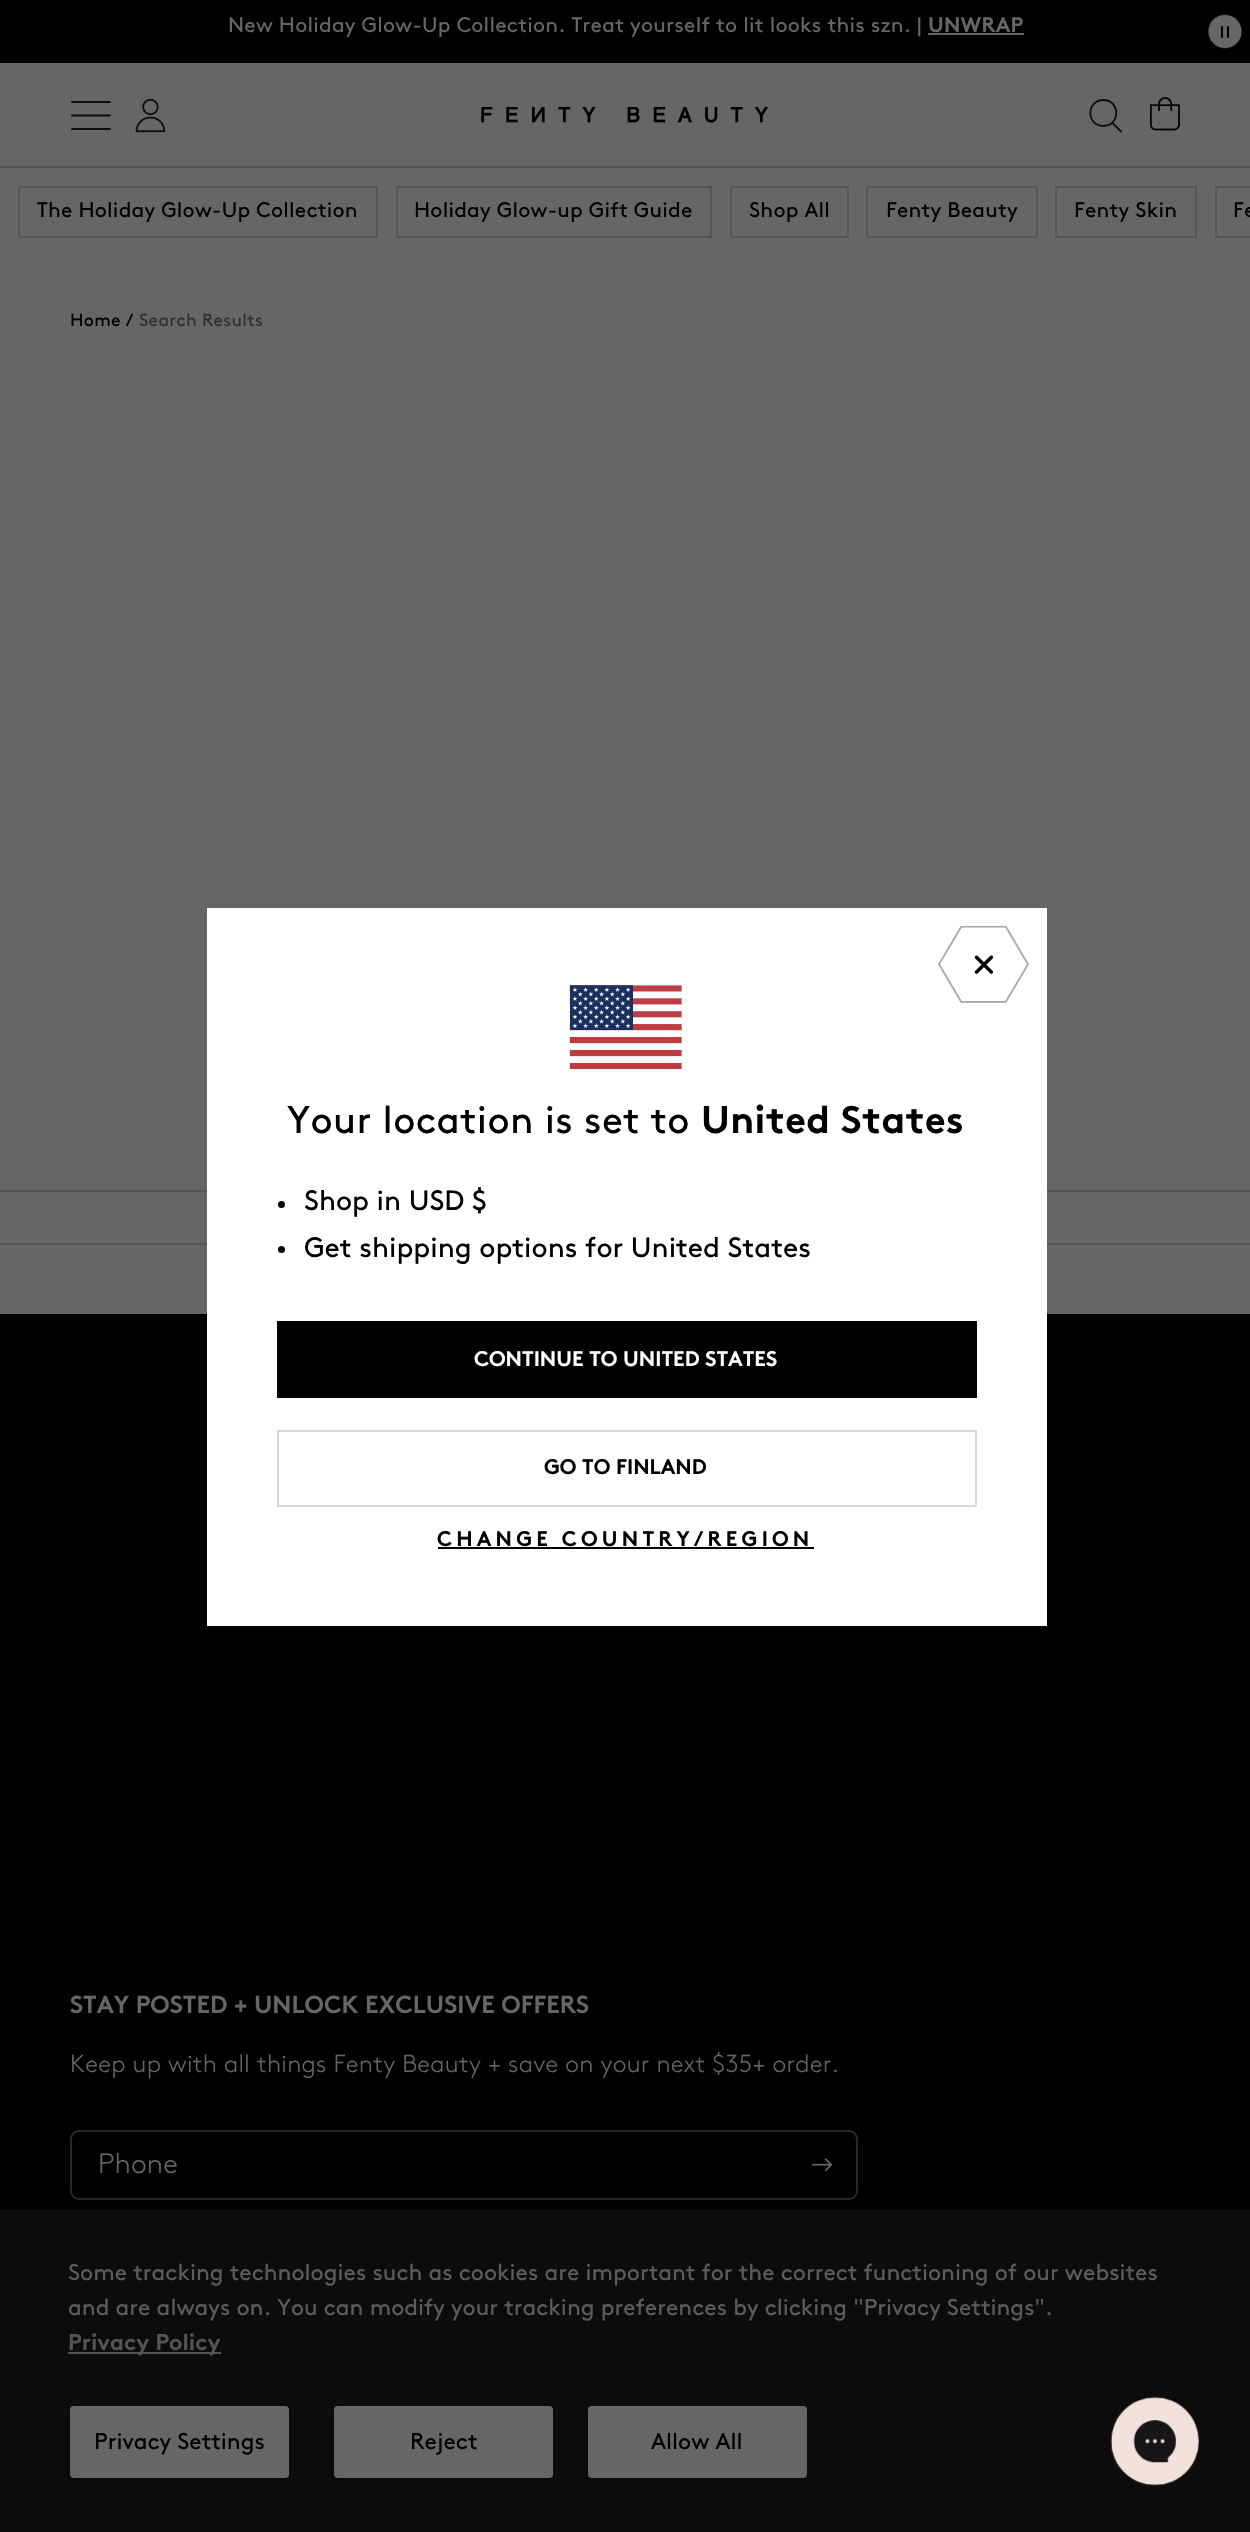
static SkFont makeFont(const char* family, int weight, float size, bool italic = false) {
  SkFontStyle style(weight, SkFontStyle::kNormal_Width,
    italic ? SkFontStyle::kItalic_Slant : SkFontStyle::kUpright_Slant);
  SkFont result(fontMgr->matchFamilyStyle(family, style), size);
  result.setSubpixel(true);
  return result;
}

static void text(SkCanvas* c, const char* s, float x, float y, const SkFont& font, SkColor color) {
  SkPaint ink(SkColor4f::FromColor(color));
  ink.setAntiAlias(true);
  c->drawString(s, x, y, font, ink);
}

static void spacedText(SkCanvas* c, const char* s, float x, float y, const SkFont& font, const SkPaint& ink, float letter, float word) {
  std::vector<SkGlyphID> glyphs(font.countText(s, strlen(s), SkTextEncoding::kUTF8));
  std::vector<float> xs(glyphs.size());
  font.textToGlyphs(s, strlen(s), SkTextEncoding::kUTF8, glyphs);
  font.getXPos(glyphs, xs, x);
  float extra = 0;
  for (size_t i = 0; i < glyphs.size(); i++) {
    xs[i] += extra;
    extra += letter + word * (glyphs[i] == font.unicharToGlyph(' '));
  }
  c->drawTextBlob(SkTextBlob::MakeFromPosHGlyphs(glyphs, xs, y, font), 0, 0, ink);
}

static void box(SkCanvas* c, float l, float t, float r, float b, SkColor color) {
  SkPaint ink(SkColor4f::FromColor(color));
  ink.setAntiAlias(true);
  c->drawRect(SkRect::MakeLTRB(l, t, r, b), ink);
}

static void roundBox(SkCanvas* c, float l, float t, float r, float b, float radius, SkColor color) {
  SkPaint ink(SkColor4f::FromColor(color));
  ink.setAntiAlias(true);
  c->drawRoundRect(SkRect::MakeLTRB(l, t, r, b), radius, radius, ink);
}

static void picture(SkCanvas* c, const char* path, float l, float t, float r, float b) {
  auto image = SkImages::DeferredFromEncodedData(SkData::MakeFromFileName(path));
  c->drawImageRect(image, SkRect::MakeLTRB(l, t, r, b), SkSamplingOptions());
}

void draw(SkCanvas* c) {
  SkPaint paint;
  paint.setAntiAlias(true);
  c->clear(0xff666666);
  box(c, 0, 0, 1250, 63, 0xff000000);
  SkFont face1 = makeFont("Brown", 400, 21);
  paint.setColor(0xff666666);
  spacedText(c, "New Holiday Glow-Up Collection. Treat yourself to lit looks this szn. |", 228, 32, face1, paint, 0.2f, 0);
  SkFont face2 = makeFont("Brown", 700, 21);
  spacedText(c, "UNWRAP", 928, 32, face2, paint, 0.2f, 0);
  box(c, 928, 33, 1024, 35, 0xff666666);
  c->drawCircle(1225, 31.5f, 17, paint);
  c->save();
  c->clipRect(SkRect::MakeLTRB(1208, 14, 1243, 49));
  paint.setStyle(SkPaint::kStroke_Style);
  paint.setStrokeWidth(0.7f);
  paint.setColor(0xff000000);
  c->drawCircle(1225, 31.5f, 17, paint);
  c->restore();
  paint.setStrokeWidth(2.1f);
  paint.setStrokeCap(SkPaint::kRound_Cap);
  c->drawPath(SkPathBuilder().moveTo(1222, 27).lineTo(1222, 37).moveTo(1228, 27).lineTo(1228, 37).detach(), paint);
  box(c, 0, 166, 1250, 168, 0xff565656);
  paint.setStrokeWidth(1.8f);
  paint.setColor(0xff0e0c0d);
  c->drawPath(SkPathBuilder().moveTo(72, 102).lineTo(110, 102).moveTo(72, 115.5f).lineTo(110, 115.5f).moveTo(72, 129).lineTo(110, 129).detach(), paint);
  picture(c, "img_01.png", 135, 98, 166, 133);
  picture(c, "img_02.png", 481, 107, 768, 123);
  c->drawPath(SkPathBuilder().moveTo(1103.5f, 126).cubicTo(1120.5f, 126, 1120.5f, 100, 1103.5f, 100).cubicTo(1086, 100, 1086, 126, 1103.5f, 126).close().moveTo(1121, 131.5f).lineTo(1112, 122.5f).detach(), paint);
  picture(c, "img_03.png", 1150, 97, 1180, 131);
  paint.setStrokeWidth(2);
  paint.setStrokeCap(SkPaint::kButt_Cap);
  paint.setColor(0xff565656);
  c->drawRect(SkRect::MakeLTRB(19, 187, 377, 237), paint);
  paint.setStyle(SkPaint::kFill_Style);
  paint.setColor(0xff000000);
  spacedText(c, "The Holiday Glow-Up Collection", 37, 217, face1, paint, 0.2f, 0);
  paint.setStyle(SkPaint::kStroke_Style);
  paint.setColor(0xff565656);
  c->drawRect(SkRect::MakeLTRB(397, 187, 711, 237), paint);
  paint.setStyle(SkPaint::kFill_Style);
  paint.setColor(0xff000000);
  spacedText(c, "Holiday Glow-up Gift Guide", 414, 217, face1, paint, 0.2f, 0);
  paint.setStyle(SkPaint::kStroke_Style);
  paint.setColor(0xff565656);
  c->drawRect(SkRect::MakeLTRB(731, 187, 848, 237), paint);
  paint.setStyle(SkPaint::kFill_Style);
  paint.setColor(0xff000000);
  spacedText(c, "Shop All", 749, 217, face1, paint, 0.2f, 0);
  paint.setStyle(SkPaint::kStroke_Style);
  paint.setColor(0xff565656);
  c->drawRect(SkRect::MakeLTRB(867, 187, 1037, 237), paint);
  paint.setStyle(SkPaint::kFill_Style);
  paint.setColor(0xff000000);
  spacedText(c, "Fenty Beauty", 886, 217, face1, paint, 0.2f, 0);
  paint.setStyle(SkPaint::kStroke_Style);
  paint.setColor(0xff565656);
  c->drawRect(SkRect::MakeLTRB(1056, 187, 1196, 237), paint);
  paint.setStyle(SkPaint::kFill_Style);
  paint.setColor(0xff000000);
  spacedText(c, "Fenty Skin", 1074, 217, face1, paint, 0.2f, 0);
  paint.setStyle(SkPaint::kStroke_Style);
  paint.setColor(0xff565656);
  c->drawRect(SkRect::MakeLTRB(1216, 187, 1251, 237), paint);
  paint.setStyle(SkPaint::kFill_Style);
  paint.setColor(0xff000000);
  spacedText(c, "Fe", 1233, 217, face1, paint, 0.2f, 0);
  SkFont face3 = makeFont("Brown", 400, 17.5f);
  spacedText(c, "Home /", 70, 326, face3, paint, 0.3f, 0);
  paint.setColor(0xff303030);
  spacedText(c, "Search Results", 139, 326, face3, paint, 0.3f, 0);
  box(c, 0, 1190, 1250, 1192, 0xff565656);
  box(c, 0, 1243, 1250, 1245, 0xff565656);
  box(c, 0, 1314, 1250, 2210, 0xff000000);
  box(c, 207, 908, 1047, 1626, 0xffffffff);
  picture(c, "img_04.png", 938, 926, 1029, 1003);
  picture(c, "img_05.png", 569, 985, 682, 1069);
  SkFont face4 = makeFont("Brown", 400, 38.5f);
  paint.setColor(0xff000000);
  spacedText(c, "Your location is set to", 287, 1133, face4, paint, 0.4f, 0);
  SkFont face5 = makeFont("Brown", 700, 38.5f);
  spacedText(c, "United States", 701, 1133, face5, paint, 0.4f, 0);
  c->drawCircle(281.5f, 1204.5f, 3.5f, paint);
  SkFont face6 = makeFont("Brown", 400, 28);
  text(c, "Shop in USD $", 304, 1210, face6, 0xff000000);
  c->drawCircle(281.5f, 1249.5f, 3.5f, paint);
  text(c, "Get shipping options for United States", 304, 1257, face6, 0xff000000);
  box(c, 277, 1321, 977, 1398, 0xff000000);
  text(c, "CONTINUE TO UNITED STATES", 474, 1366, face2, 0xffffffff);
  paint.setStyle(SkPaint::kStroke_Style);
  paint.setColor(0xffd8d8d8);
  c->drawRect(SkRect::MakeLTRB(278, 1431, 976, 1506), paint);
  text(c, "GO TO FINLAND", 544, 1474, face2, 0xff000000);
  paint.setStyle(SkPaint::kFill_Style);
  paint.setColor(0xff000000);
  spacedText(c, "CHANGE COUNTRY/REGION", 437, 1546, face2, paint, 4.2f, 0);
  box(c, 438, 1547, 814, 1549, 0xff000000);
  SkFont face7 = makeFont("Brown", 700, 24.5f);
  text(c, "STAY POSTED + UNLOCK EXCLUSIVE OFFERS", 70, 2013, face7, 0xff666666);
  SkFont face8 = makeFont("Brown", 300, 24.5f);
  paint.setColor(0xff666666);
  spacedText(c, "Keep up with all things Fenty Beauty + save on your next $35+ order.", 70, 2072, face8, paint, 0.25f, 0);
  paint.setStyle(SkPaint::kStroke_Style);
  paint.setColor(0xff292929);
  c->drawRoundRect(SkRect::MakeLTRB(71, 2131, 857, 2199), 8, 8, paint);
  SkFont face9 = makeFont("Brown", 300, 28);
  paint.setStyle(SkPaint::kFill_Style);
  paint.setColor(0xff666666);
  spacedText(c, "Phone", 98, 2173, face9, paint, 0.25f, 0);
  picture(c, "img_06.png", 812, 2158, 833, 2172);
  box(c, 0, 2210, 1250, 2532, 0xff0c0c0c);
  SkFont face10 = makeFont("Brown", 400, 22.75f);
  text(c, "Some tracking technologies such as cookies are important for the correct functioning of our websites", 68, 2280, face10, 0xff5b5b5b);
  text(c, "and are always on. You can modify your tracking preferences by clicking \"Privacy Settings\".", 68, 2315, face10, 0xff5b5b5b);
  box(c, 68, 2352, 221, 2354, 0xff545454);
  SkFont face11 = makeFont("Brown", 700, 22.75f);
  text(c, "Privacy Policy", 68, 2350, face11, 0xff545454);
  roundBox(c, 70, 2406, 289, 2478, 4, 0xff666666);
  text(c, "Privacy Settings", 94, 2449, face10, 0xff000000);
  roundBox(c, 334, 2406, 553, 2478, 4, 0xff666666);
  text(c, "Reject", 410, 2449, face10, 0xff000000);
  roundBox(c, 588, 2406, 807, 2478, 4, 0xff666666);
  text(c, "Allow All", 651, 2449, face10, 0xff000000);
  picture(c, "img_07.png", 1110, 2397, 1199, 2486);
}
